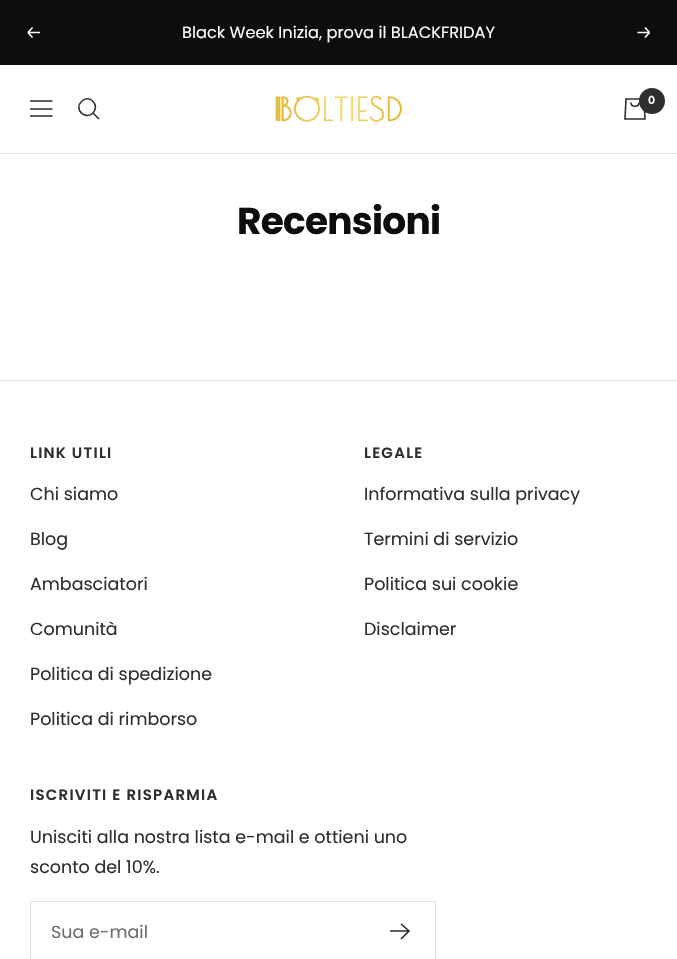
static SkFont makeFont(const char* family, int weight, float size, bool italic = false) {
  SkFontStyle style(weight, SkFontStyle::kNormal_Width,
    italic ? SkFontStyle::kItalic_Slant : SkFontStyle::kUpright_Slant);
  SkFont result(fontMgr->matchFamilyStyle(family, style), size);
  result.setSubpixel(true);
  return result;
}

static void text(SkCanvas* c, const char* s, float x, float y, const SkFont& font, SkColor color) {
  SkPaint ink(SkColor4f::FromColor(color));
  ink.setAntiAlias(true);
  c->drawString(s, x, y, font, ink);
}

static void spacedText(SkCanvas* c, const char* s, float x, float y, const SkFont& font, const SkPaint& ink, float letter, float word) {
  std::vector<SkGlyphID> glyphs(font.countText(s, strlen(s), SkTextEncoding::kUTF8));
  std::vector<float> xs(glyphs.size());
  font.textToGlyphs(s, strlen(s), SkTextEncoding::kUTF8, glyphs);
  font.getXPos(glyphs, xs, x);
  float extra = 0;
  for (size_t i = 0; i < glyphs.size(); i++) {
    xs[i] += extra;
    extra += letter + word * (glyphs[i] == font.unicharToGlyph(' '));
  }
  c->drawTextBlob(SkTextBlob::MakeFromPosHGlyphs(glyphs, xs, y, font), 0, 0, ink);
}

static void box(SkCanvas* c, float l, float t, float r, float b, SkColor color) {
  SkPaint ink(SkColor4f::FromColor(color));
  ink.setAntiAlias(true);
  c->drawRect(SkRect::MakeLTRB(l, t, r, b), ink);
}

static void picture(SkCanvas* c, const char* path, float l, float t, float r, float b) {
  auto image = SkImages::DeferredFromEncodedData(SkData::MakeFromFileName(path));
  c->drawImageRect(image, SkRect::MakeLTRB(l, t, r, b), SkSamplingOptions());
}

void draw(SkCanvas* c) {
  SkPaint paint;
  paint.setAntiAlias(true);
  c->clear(0xffffffff);
  box(c, 0, 0, 677, 65, 0xff0d0d0d);
  paint.setStyle(SkPaint::kStroke_Style);
  paint.setStrokeWidth(1.6f);
  paint.setColor(0xffffffff);
  c->drawPath(SkPathBuilder().moveTo(40, 32.5f).lineTo(28, 32.5f).moveTo(28, 32.5f).lineTo(32.5f, 37.5f).moveTo(28, 32.5f).lineTo(32.5f, 27.5f).detach(), paint);
  SkFont face1 = makeFont("Poppins", 400, 16.25f);
  text(c, "Black Week Inizia, prova il BLACKFRIDAY", 182, 38, face1, 0xffffffff);
  c->drawPath(SkPathBuilder().moveTo(637.5f, 32.5f).lineTo(649.5f, 32.5f).moveTo(649.5f, 32.5f).lineTo(645, 37.5f).moveTo(649.5f, 32.5f).lineTo(645, 27.5f).detach(), paint);
  paint.setStyle(SkPaint::kFill_Style);
  paint.setColor(0xffe0e0e0);
  c->drawPath(SkPathBuilder().moveTo(0, 152).lineTo(0, 154).lineTo(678, 154).lineTo(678, 66).lineTo(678, 152).close().detach(), paint);
  box(c, 0, 152, 677, 153, 0xffffffff);
  paint.setStyle(SkPaint::kStroke_Style);
  paint.setColor(0xff2e2e2e);
  c->drawPath(SkPathBuilder().moveTo(30, 101).lineTo(52.5f, 101).moveTo(30, 116).lineTo(52.5f, 116).close().moveTo(30, 109).lineTo(52.5f, 109).close().detach(), paint);
  c->drawPath(SkPathBuilder().moveTo(93, 113).cubicTo(100.5f, 105, 89, 93.5f, 81.5f, 101.5f).cubicTo(73.5f, 109, 85, 120.5f, 93, 113).close().moveTo(93, 113).lineTo(99, 119).detach(), paint);
  picture(c, "img_01.png", 275, 95, 402, 122);
  c->drawPath(SkPathBuilder().moveTo(626, 99).lineTo(644, 99).lineTo(645, 119).lineTo(625, 119).close().moveTo(631, 102.5f).cubicTo(631, 107.5f, 639, 107.5f, 639, 102.5f).detach(), paint);
  paint.setStyle(SkPaint::kFill_Style);
  c->drawCircle(652, 101, 13, paint);
  SkFont face2 = makeFont("Poppins", 600, 11);
  text(c, "0", 648, 104, face2, 0xffffffff);
  SkFont face3 = makeFont("Poppins", 700, 37.5f);
  paint.setColor(0xff0d0d0d);
  spacedText(c, "Recensioni", 237, 234, face3, paint, -0.75f, 0);
  box(c, 0, 380, 677, 381, 0xffe0e0e0);
  SkFont face4 = makeFont("Poppins", 600, 15);
  paint.setColor(0xff2e2e2e);
  spacedText(c, "LINK UTILI", 30, 458, face4, paint, 1.25f, 0);
  SkFont face5 = makeFont("Poppins", 400, 17.5f);
  text(c, "Chi siamo", 30, 500, face5, 0xff2e2e2e);
  text(c, "Blog", 30, 545, face5, 0xff2e2e2e);
  text(c, "Ambasciatori", 30, 590, face5, 0xff2e2e2e);
  text(c, "Comunità", 30, 635, face5, 0xff2e2e2e);
  text(c, "Politica di spedizione", 30, 680, face5, 0xff2e2e2e);
  text(c, "Politica di rimborso", 30, 725, face5, 0xff2e2e2e);
  spacedText(c, "LEGALE", 364, 458, face4, paint, 1.25f, 0);
  text(c, "Informativa sulla privacy", 364, 500, face5, 0xff2e2e2e);
  text(c, "Termini di servizio", 364, 545, face5, 0xff2e2e2e);
  text(c, "Politica sui cookie", 364, 590, face5, 0xff2e2e2e);
  text(c, "Disclaimer", 364, 635, face5, 0xff2e2e2e);
  spacedText(c, "ISCRIVITI E RISPARMIA", 30, 800, face4, paint, 1.25f, 0);
  text(c, "Unisciti alla nostra lista e-mail e ottieni uno", 30, 843, face5, 0xff2e2e2e);
  text(c, "sconto del 10%.", 30, 873, face5, 0xff2e2e2e);
  paint.setStyle(SkPaint::kStroke_Style);
  paint.setStrokeWidth(1);
  paint.setColor(0xffe0e0e0);
  c->drawRect(SkRect::MakeLTRB(30.5f, 901.5f, 435.5f, 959.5f), paint);
  text(c, "Sua e-mail", 51, 938, face5, 0xff6d6d6d);
  paint.setStrokeWidth(1.6f);
  paint.setColor(0xff2e2e2e);
  c->drawPath(SkPathBuilder().moveTo(390, 931).lineTo(409, 931).moveTo(401, 924).lineTo(409, 931).lineTo(401, 939).detach(), paint);
}
